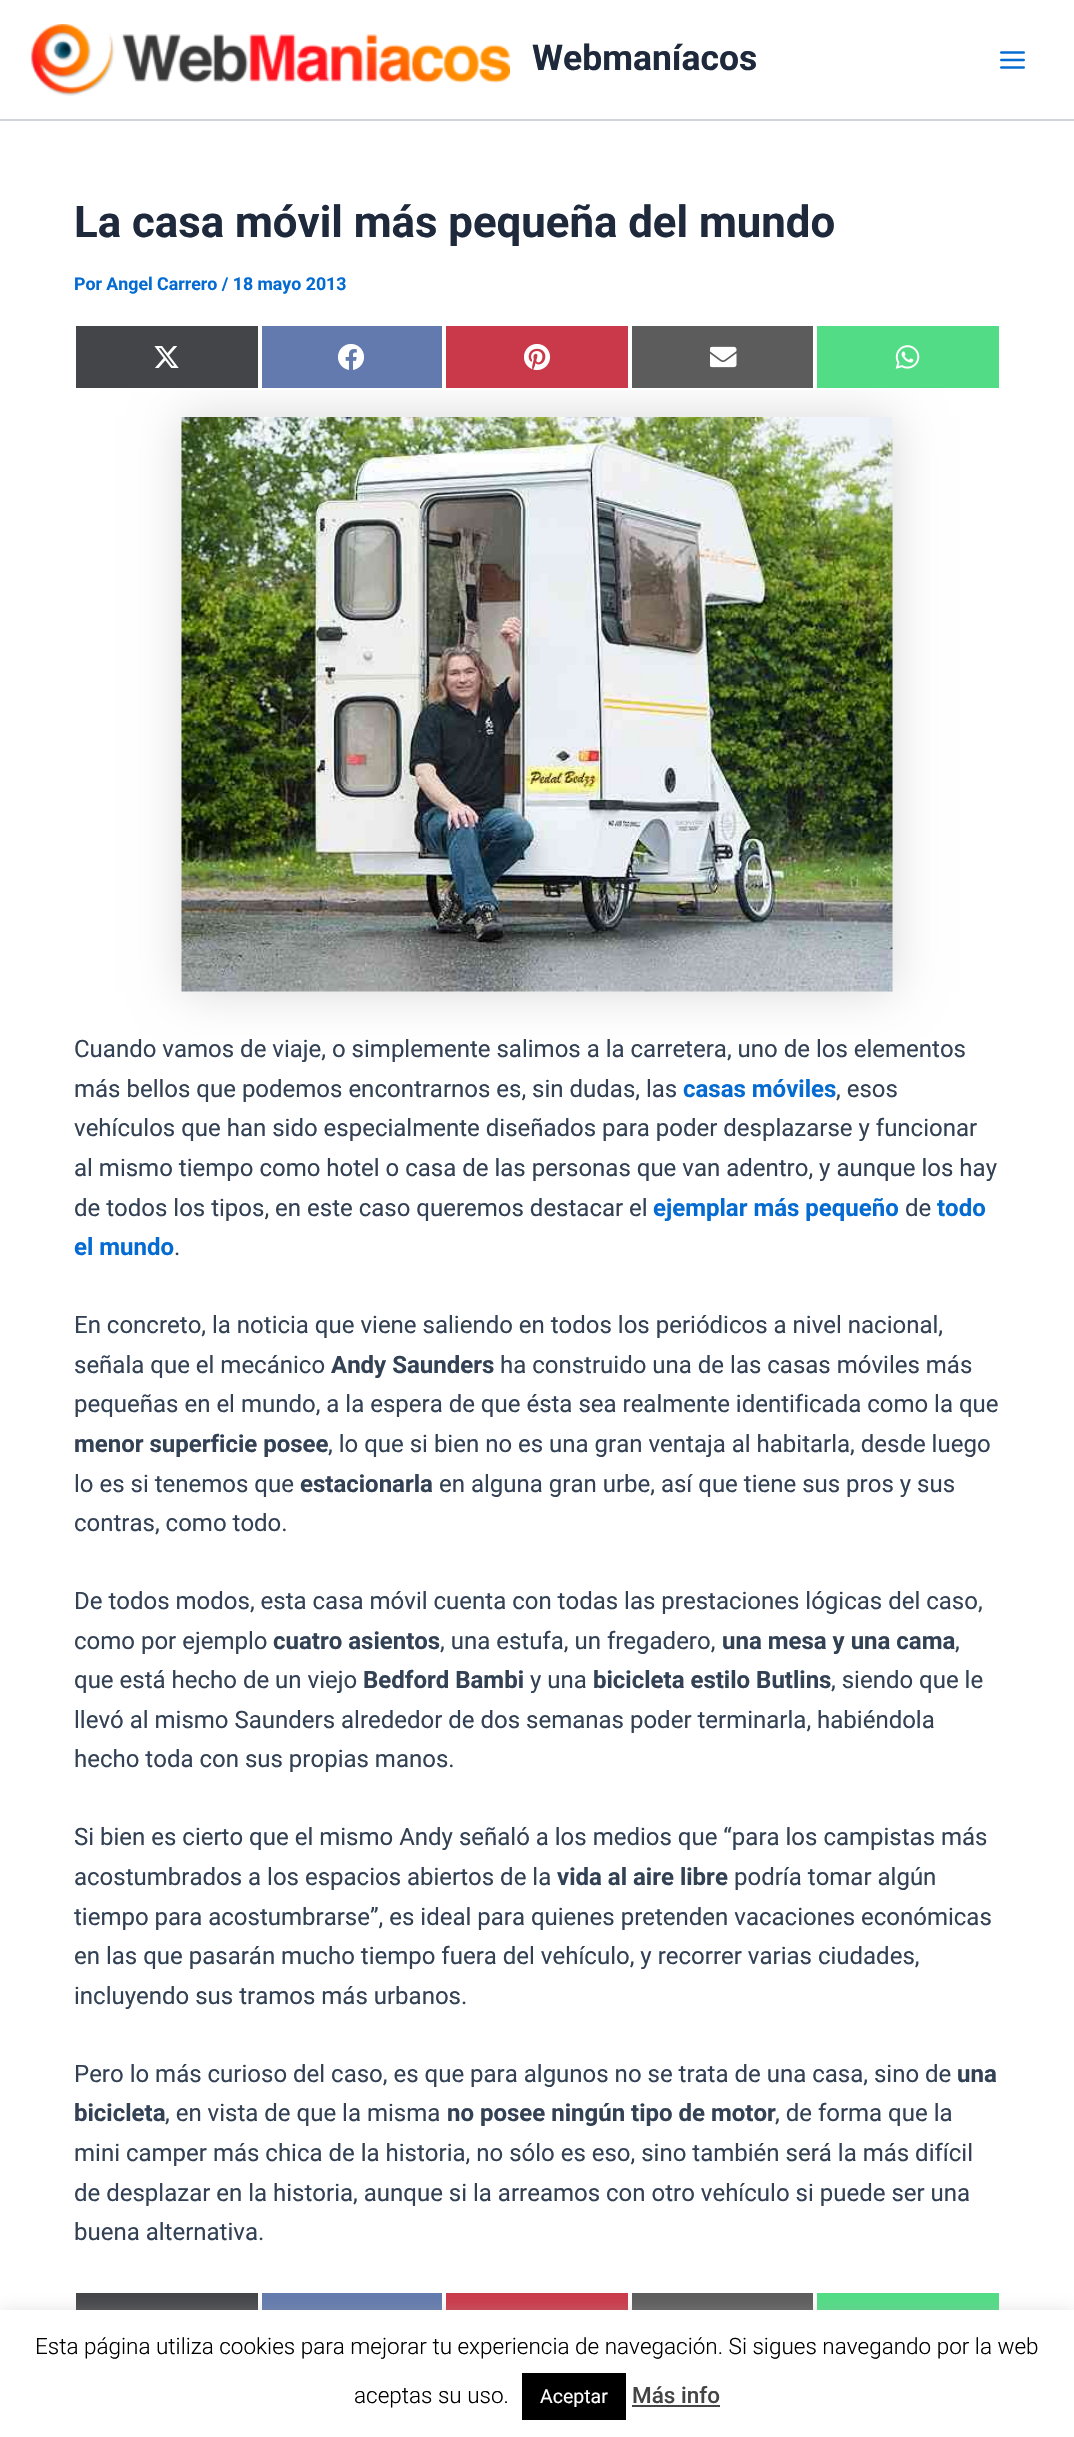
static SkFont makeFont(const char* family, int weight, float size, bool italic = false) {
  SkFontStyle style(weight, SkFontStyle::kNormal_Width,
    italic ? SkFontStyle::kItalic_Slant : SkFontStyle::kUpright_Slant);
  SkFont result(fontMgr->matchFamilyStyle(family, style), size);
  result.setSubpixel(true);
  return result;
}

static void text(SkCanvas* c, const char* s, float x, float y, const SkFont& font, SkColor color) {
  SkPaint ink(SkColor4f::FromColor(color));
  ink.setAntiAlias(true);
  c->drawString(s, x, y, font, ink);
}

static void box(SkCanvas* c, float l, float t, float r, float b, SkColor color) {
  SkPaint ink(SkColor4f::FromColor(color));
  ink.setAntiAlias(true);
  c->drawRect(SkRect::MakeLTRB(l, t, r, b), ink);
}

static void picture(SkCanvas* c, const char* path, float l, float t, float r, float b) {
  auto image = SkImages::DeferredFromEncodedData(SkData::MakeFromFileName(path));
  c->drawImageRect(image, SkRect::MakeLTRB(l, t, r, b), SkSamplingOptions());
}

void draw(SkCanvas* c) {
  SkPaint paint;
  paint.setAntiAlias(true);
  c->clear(0xffffffff);
  box(c, 0, 119, 1074, 121, 0xffd1d5db);
  picture(c, "img_01.png", 30, 24, 510, 96);
  SkFont face1 = makeFont("Roboto", 700, 35.5f);
  text(c, "Webmaníacos", 532, 70, face1, 0xff1e293b);
  picture(c, "img_02.png", 1000, 51, 1025, 69);
  SkFont face2 = makeFont("Roboto", 700, 43.75f);
  text(c, "La casa móvil más pequeña del mundo", 74, 237, face2, 0xff1e293b);
  SkFont face3 = makeFont("Roboto", 700, 17.75f);
  text(c, "Por Angel Carrero / 18 mayo 2013", 74, 290, face3, 0xff046bd2);
  paint.setColor(0x26000000);
  paint.setMaskFilter(SkMaskFilter::MakeBlur(kNormal_SkBlurStyle, 22.5f));
  c->drawRect(SkRect::MakeLTRB(182, 417, 893, 992), paint);
  paint.setMaskFilter(nullptr);
  paint.setColor(0xcc14171a);
  c->drawRect(SkRect::MakeLTRB(75, 325, 259, 389), paint);
  paint.setStyle(SkPaint::kStroke_Style);
  paint.setStrokeWidth(2);
  paint.setColor(0xffffffff);
  c->drawRect(SkRect::MakeLTRB(75, 325, 259, 389), paint);
  picture(c, "img_03.png", 154, 346, 179, 368);
  paint.setStyle(SkPaint::kFill_Style);
  paint.setColor(0xcc3b5998);
  c->drawRect(SkRect::MakeLTRB(261, 325, 443, 389), paint);
  paint.setStyle(SkPaint::kStroke_Style);
  paint.setColor(0xffffffff);
  c->drawRect(SkRect::MakeLTRB(261, 325, 443, 389), paint);
  picture(c, "img_04.png", 338, 344, 365, 370);
  paint.setStyle(SkPaint::kFill_Style);
  paint.setColor(0xccbd081c);
  c->drawRect(SkRect::MakeLTRB(445, 325, 629, 389), paint);
  paint.setStyle(SkPaint::kStroke_Style);
  paint.setColor(0xffffffff);
  c->drawRect(SkRect::MakeLTRB(445, 325, 629, 389), paint);
  picture(c, "img_05.png", 524, 344, 551, 371);
  paint.setStyle(SkPaint::kFill_Style);
  paint.setColor(0xcc333333);
  c->drawRect(SkRect::MakeLTRB(631, 325, 814, 389), paint);
  paint.setStyle(SkPaint::kStroke_Style);
  paint.setColor(0xffffffff);
  c->drawRect(SkRect::MakeLTRB(631, 325, 814, 389), paint);
  picture(c, "img_06.png", 710, 346, 737, 368);
  paint.setStyle(SkPaint::kFill_Style);
  paint.setColor(0xcc25d366);
  c->drawRect(SkRect::MakeLTRB(816, 325, 1000, 389), paint);
  paint.setStyle(SkPaint::kStroke_Style);
  paint.setColor(0xffffffff);
  c->drawRect(SkRect::MakeLTRB(816, 325, 1000, 389), paint);
  picture(c, "img_07.png", 895, 345, 920, 369);
  picture(c, "img_08.png", 181, 417, 893, 992);
  SkFont face4 = makeFont("Roboto", 400, 24);
  text(c, "Cuando vamos de viaje, o simplemente salimos a la carretera, uno de los elementos", 74, 1057, face4, 0xff334155);
  text(c, "más bellos que podemos encontrarnos es, sin dudas, las", 74, 1097, face4, 0xff334155);
  SkFont face5 = makeFont("Roboto", 700, 24);
  text(c, "casas móviles", 683, 1097, face5, 0xff046bd2);
  text(c, ", esos", 836, 1097, face4, 0xff334155);
  text(c, "vehículos que han sido especialmente diseñados para poder desplazarse y funcionar", 74, 1136, face4, 0xff334155);
  text(c, "al mismo tiempo como hotel o casa de las personas que van adentro, y aunque los hay", 74, 1176, face4, 0xff334155);
  text(c, "de todos los tipos, en este caso queremos destacar el", 74, 1216, face4, 0xff334155);
  text(c, "ejemplar más pequeño", 653, 1216, face5, 0xff046bd2);
  text(c, "de", 905, 1216, face4, 0xff334155);
  text(c, "todo", 937, 1216, face5, 0xff046bd2);
  text(c, "el mundo", 74, 1255, face5, 0xff046bd2);
  text(c, ".", 174, 1255, face4, 0xff334155);
  text(c, "En concreto, la noticia que viene saliendo en todos los periódicos a nivel nacional,", 74, 1333, face4, 0xff334155);
  text(c, "señala que el mecánico", 74, 1373, face4, 0xff334155);
  text(c, "Andy Saunders", 331, 1373, face5, 0xff334155);
  text(c, "ha construido una de las casas móviles más", 500, 1373, face4, 0xff334155);
  text(c, "pequeñas en el mundo, a la espera de que ésta sea realmente identificada como la que", 74, 1412, face4, 0xff334155);
  text(c, "menor superficie posee", 74, 1452, face5, 0xff334155);
  text(c, ", lo que si bien no es una gran ventaja al habitarla, desde luego", 328, 1452, face4, 0xff334155);
  text(c, "lo es si tenemos que", 74, 1492, face4, 0xff334155);
  text(c, "estacionarla", 300, 1492, face5, 0xff334155);
  text(c, "en alguna gran urbe, así que tiene sus pros y sus", 439, 1492, face4, 0xff334155);
  text(c, "contras, como todo.", 74, 1531, face4, 0xff334155);
  text(c, "De todos modos, esta casa móvil cuenta con todas las prestaciones lógicas del caso,", 74, 1609, face4, 0xff334155);
  text(c, "como por ejemplo", 74, 1649, face4, 0xff334155);
  text(c, "cuatro asientos", 273, 1649, face5, 0xff334155);
  text(c, ", una estufa, un fregadero,", 440, 1649, face4, 0xff334155);
  text(c, "una mesa y una cama", 722, 1649, face5, 0xff334155);
  text(c, ",", 955, 1649, face4, 0xff334155);
  text(c, "que está hecho de un viejo", 74, 1688, face4, 0xff334155);
  text(c, "Bedford Bambi", 363, 1688, face5, 0xff334155);
  text(c, "y una", 530, 1688, face4, 0xff334155);
  text(c, "bicicleta estilo Butlins", 593, 1688, face5, 0xff334155);
  text(c, ", siendo que le", 831, 1688, face4, 0xff334155);
  text(c, "llevó al mismo Saunders alrededor de dos semanas poder terminarla, habiéndola", 74, 1728, face4, 0xff334155);
  text(c, "hecho toda con sus propias manos.", 74, 1767, face4, 0xff334155);
  text(c, "Si bien es cierto que el mismo Andy señaló a los medios que “para los campistas más", 74, 1845, face4, 0xff334155);
  text(c, "acostumbrados a los espacios abiertos de la", 74, 1885, face4, 0xff334155);
  text(c, "vida al aire libre", 557, 1885, face5, 0xff334155);
  text(c, "podría tomar algún", 734, 1885, face4, 0xff334155);
  text(c, "tiempo para acostumbrarse”, es ideal para quienes pretenden vacaciones económicas", 74, 1925, face4, 0xff334155);
  text(c, "en las que pasarán mucho tiempo fuera del vehículo, y recorrer varias ciudades,", 74, 1964, face4, 0xff334155);
  text(c, "incluyendo sus tramos más urbanos.", 74, 2004, face4, 0xff334155);
  text(c, "Pero lo más curioso del caso, es que para algunos no se trata de una casa, sino de", 74, 2082, face4, 0xff334155);
  text(c, "una", 957, 2082, face5, 0xff334155);
  text(c, "bicicleta", 74, 2121, face5, 0xff334155);
  text(c, ", en vista de que la misma", 165, 2121, face4, 0xff334155);
  text(c, "no posee ningún tipo de motor", 447, 2121, face5, 0xff334155);
  text(c, ", de forma que la", 775, 2121, face4, 0xff334155);
  text(c, "mini camper más chica de la historia, no sólo es eso, sino también será la más difícil", 74, 2161, face4, 0xff334155);
  text(c, "de desplazar en la historia, aunque si la arreamos con otro vehículo si puede ser una", 74, 2201, face4, 0xff334155);
  text(c, "buena alternativa.", 74, 2240, face4, 0xff334155);
  box(c, 76, 2293, 258, 2310, 0xff434548);
  box(c, 262, 2293, 442, 2310, 0xff627aad);
  box(c, 446, 2293, 628, 2310, 0xffca3949);
  box(c, 632, 2293, 813, 2310, 0xff5c5c5c);
  box(c, 817, 2293, 999, 2310, 0xff51dc85);
  paint.setStyle(SkPaint::kFill_Style);
  paint.setColor(0x4dacabab);
  paint.setMaskFilter(SkMaskFilter::MakeBlur(kNormal_SkBlurStyle, 7.5f));
  c->drawRect(SkRect::MakeLTRB(0, 2309, 1074, 2436), paint);
  paint.setMaskFilter(nullptr);
  box(c, 0, 2310, 1074, 2437, 0xffffffff);
  SkFont face6 = makeFont("Roboto", 300, 22.5f);
  text(c, "Esta página utiliza cookies para mejorar tu experiencia de navegación. Si sigues navegando por la web", 35, 2354, face6, 0xff000000);
  text(c, "aceptas su uso.", 354, 2403, face6, 0xff000000);
  box(c, 522, 2373, 626, 2420, 0xff000000);
  SkFont face7 = makeFont("Roboto", 400, 19.5f);
  text(c, "Aceptar", 540, 2403, face7, 0xffffffff);
  SkFont face8 = makeFont("Roboto", 500, 22.5f);
  text(c, "Más info", 632, 2403, face8, 0xff444444);
  box(c, 632, 2405, 720, 2407, 0xff444444);
}
